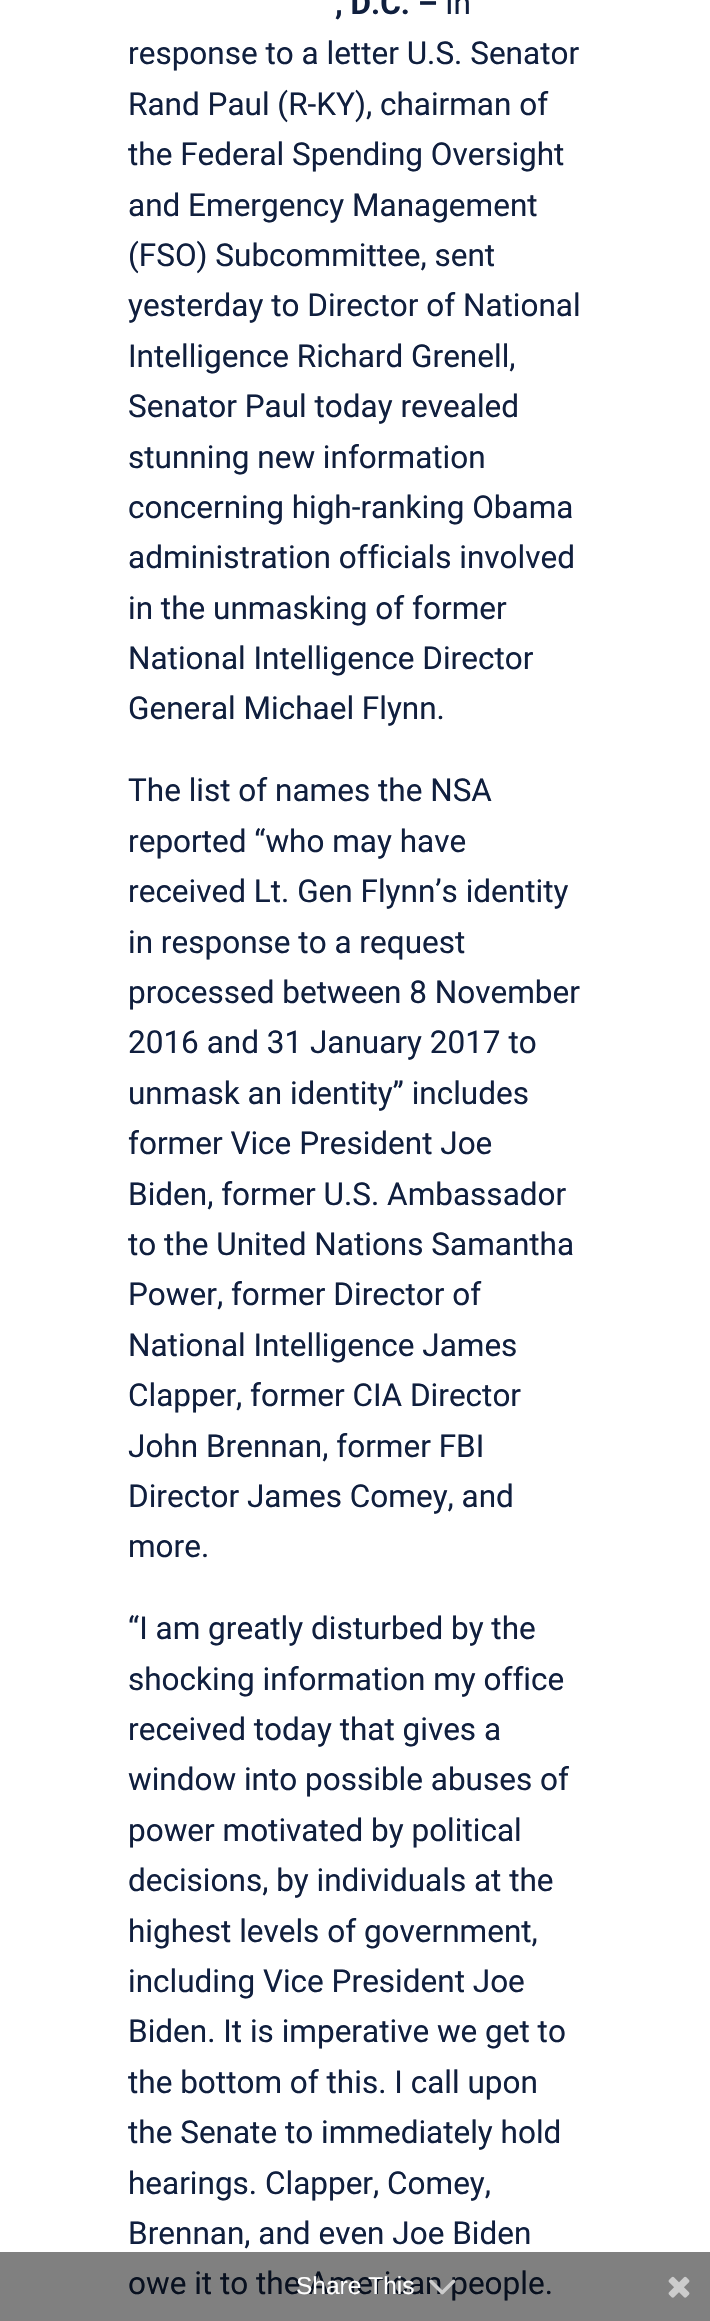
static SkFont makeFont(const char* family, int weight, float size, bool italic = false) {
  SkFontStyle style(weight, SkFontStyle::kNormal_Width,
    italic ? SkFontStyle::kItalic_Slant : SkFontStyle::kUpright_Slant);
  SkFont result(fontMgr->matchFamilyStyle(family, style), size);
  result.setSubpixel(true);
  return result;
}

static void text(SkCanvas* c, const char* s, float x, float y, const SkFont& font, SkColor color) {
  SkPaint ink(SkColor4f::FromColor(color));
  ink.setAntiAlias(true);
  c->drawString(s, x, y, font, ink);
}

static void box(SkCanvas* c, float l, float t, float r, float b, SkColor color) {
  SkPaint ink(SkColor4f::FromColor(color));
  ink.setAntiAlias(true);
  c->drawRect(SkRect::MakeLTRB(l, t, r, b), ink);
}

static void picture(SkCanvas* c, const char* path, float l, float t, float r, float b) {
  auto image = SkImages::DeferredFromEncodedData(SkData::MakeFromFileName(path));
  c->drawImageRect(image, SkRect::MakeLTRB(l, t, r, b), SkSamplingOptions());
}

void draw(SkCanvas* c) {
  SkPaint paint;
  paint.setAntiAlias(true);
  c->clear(0xffffffff);
  box(c, 0, 2252, 710, 2321, 0xff808080);
  SkFont face1 = makeFont("Roboto", 700, 31.5f);
  text(c, ", D.C. –", 335, 14, face1, 0xff101f3e);
  SkFont face2 = makeFont("Roboto", 400, 31.5f);
  text(c, "In", 445, 14, face2, 0xff101f3e);
  text(c, "response to a letter U.S. Senator", 128, 64, face2, 0xff101f3e);
  text(c, "Rand Paul (R-KY), chairman of", 128, 115, face2, 0xff101f3e);
  text(c, "the Federal Spending Oversight", 128, 165, face2, 0xff101f3e);
  text(c, "and Emergency Management", 128, 216, face2, 0xff101f3e);
  text(c, "(FSO) Subcommittee, sent", 128, 266, face2, 0xff101f3e);
  text(c, "yesterday to Director of National", 128, 316, face2, 0xff101f3e);
  text(c, "Intelligence Richard Grenell,", 128, 367, face2, 0xff101f3e);
  text(c, "Senator Paul today revealed", 128, 417, face2, 0xff101f3e);
  text(c, "stunning new information", 128, 468, face2, 0xff101f3e);
  text(c, "concerning high-ranking Obama", 128, 518, face2, 0xff101f3e);
  text(c, "administration officials involved", 128, 568, face2, 0xff101f3e);
  text(c, "in the unmasking of former", 128, 619, face2, 0xff101f3e);
  text(c, "National Intelligence Director", 128, 669, face2, 0xff101f3e);
  text(c, "General Michael Flynn.", 128, 719, face2, 0xff101f3e);
  text(c, "The list of names the NSA", 128, 801, face2, 0xff101f3e);
  text(c, "reported “who may have", 128, 852, face2, 0xff101f3e);
  text(c, "received Lt. Gen Flynn’s identity", 128, 902, face2, 0xff101f3e);
  text(c, "in response to a request", 128, 953, face2, 0xff101f3e);
  text(c, "processed between 8 November", 128, 1003, face2, 0xff101f3e);
  text(c, "2016 and 31 January 2017 to", 128, 1053, face2, 0xff101f3e);
  text(c, "unmask an identity” includes", 128, 1104, face2, 0xff101f3e);
  text(c, "former Vice President Joe", 128, 1154, face2, 0xff101f3e);
  text(c, "Biden, former U.S. Ambassador", 128, 1205, face2, 0xff101f3e);
  text(c, "to the United Nations Samantha", 128, 1255, face2, 0xff101f3e);
  text(c, "Power, former Director of", 128, 1305, face2, 0xff101f3e);
  text(c, "National Intelligence James", 128, 1356, face2, 0xff101f3e);
  text(c, "Clapper, former CIA Director", 128, 1406, face2, 0xff101f3e);
  text(c, "John Brennan, former FBI", 128, 1457, face2, 0xff101f3e);
  text(c, "Director James Comey, and", 128, 1507, face2, 0xff101f3e);
  text(c, "more.", 128, 1557, face2, 0xff101f3e);
  text(c, "“I am greatly disturbed by the", 128, 1639, face2, 0xff101f3e);
  text(c, "shocking information my office", 128, 1690, face2, 0xff101f3e);
  text(c, "received today that gives a", 128, 1740, face2, 0xff101f3e);
  text(c, "window into possible abuses of", 128, 1790, face2, 0xff101f3e);
  text(c, "power motivated by political", 128, 1841, face2, 0xff101f3e);
  text(c, "decisions, by individuals at the", 128, 1891, face2, 0xff101f3e);
  text(c, "highest levels of government,", 128, 1942, face2, 0xff101f3e);
  text(c, "including Vice President Joe", 128, 1992, face2, 0xff101f3e);
  text(c, "Biden. It is imperative we get to", 128, 2042, face2, 0xff101f3e);
  text(c, "the bottom of this. I call upon", 128, 2093, face2, 0xff101f3e);
  text(c, "the Senate to immediately hold", 128, 2143, face2, 0xff101f3e);
  text(c, "hearings. Clapper, Comey,", 128, 2194, face2, 0xff101f3e);
  text(c, "Brennan, and even Joe Biden", 128, 2244, face2, 0xff101f3e);
  text(c, "owe it to the American people.", 128, 2294, face2, 0xff08101f);
  SkFont face3 = makeFont("Liberation Sans", 400, 24.5f);
  text(c, "Share This", 296, 2294, face3, 0xffffffff);
  picture(c, "img_01.png", 429, 2279, 456, 2295);
  picture(c, "img_02.png", 668, 2276, 690, 2298);
}
